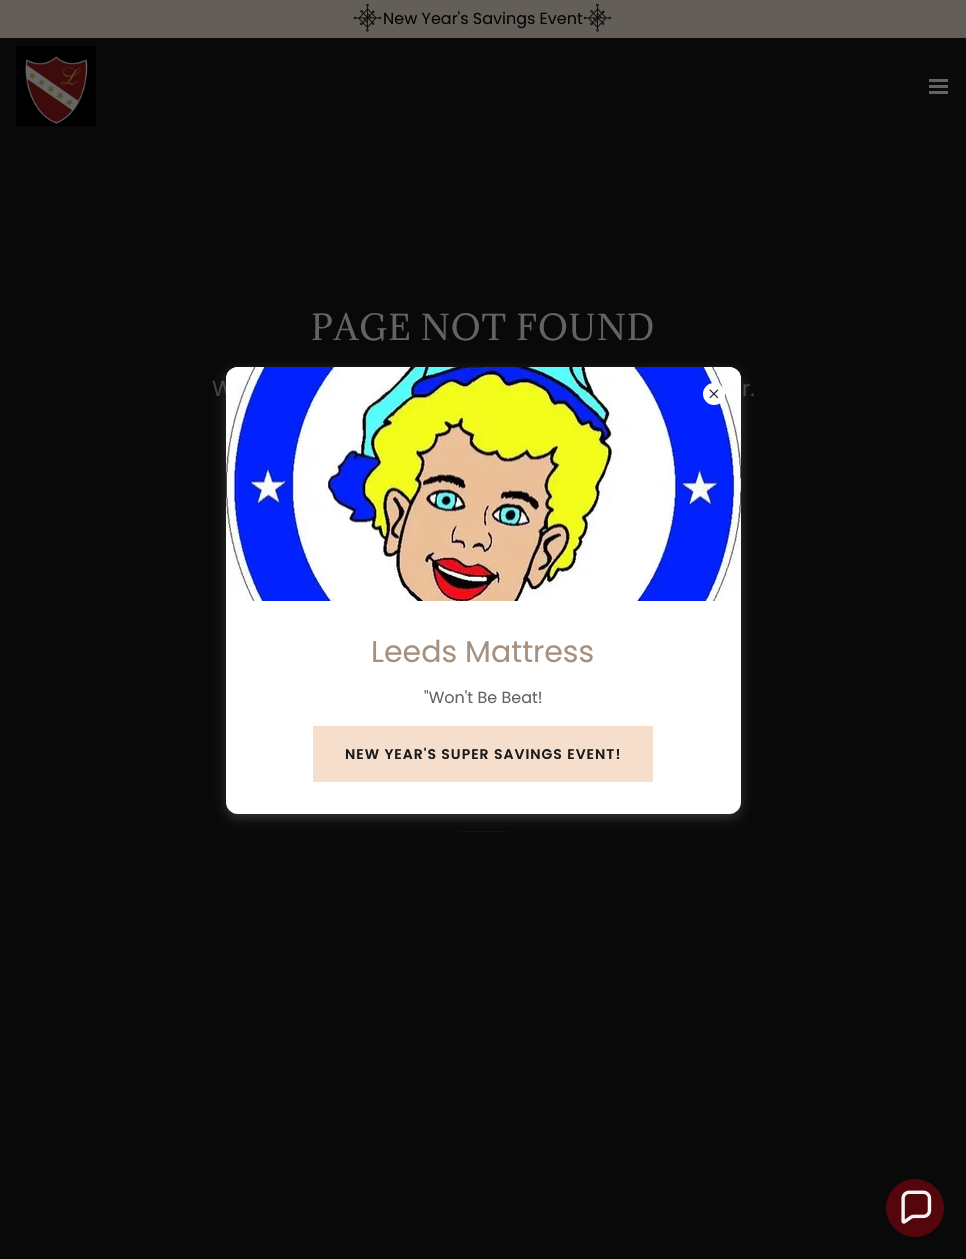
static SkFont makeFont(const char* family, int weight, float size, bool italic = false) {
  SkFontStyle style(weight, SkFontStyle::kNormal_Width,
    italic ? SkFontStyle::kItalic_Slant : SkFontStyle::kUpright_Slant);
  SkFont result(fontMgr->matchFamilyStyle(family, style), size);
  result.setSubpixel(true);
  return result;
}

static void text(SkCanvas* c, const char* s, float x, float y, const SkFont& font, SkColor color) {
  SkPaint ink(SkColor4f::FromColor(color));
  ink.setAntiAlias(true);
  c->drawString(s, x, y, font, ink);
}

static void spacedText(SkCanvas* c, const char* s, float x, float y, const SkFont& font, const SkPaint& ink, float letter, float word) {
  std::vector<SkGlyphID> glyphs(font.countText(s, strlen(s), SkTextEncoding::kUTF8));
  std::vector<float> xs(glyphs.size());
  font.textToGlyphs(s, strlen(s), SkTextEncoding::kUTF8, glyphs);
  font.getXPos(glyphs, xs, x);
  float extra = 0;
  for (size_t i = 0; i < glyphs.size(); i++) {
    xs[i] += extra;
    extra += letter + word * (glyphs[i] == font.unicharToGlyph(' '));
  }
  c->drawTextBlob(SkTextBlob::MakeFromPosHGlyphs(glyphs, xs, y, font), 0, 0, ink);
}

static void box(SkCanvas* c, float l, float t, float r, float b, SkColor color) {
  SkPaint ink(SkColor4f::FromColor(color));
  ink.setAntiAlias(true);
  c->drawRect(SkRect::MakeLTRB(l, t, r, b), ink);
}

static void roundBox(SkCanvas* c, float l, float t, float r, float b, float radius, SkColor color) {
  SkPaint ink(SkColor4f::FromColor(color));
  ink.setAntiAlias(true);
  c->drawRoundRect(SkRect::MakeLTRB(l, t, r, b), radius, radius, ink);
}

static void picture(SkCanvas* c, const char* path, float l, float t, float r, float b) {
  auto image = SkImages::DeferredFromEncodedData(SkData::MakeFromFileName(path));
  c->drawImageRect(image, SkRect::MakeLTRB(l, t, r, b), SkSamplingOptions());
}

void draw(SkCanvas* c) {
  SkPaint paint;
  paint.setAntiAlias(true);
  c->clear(0xff090909);
  box(c, 0, 0, 966, 38, 0xff645e59);
  picture(c, "img_01.png", 353, 4, 382, 32);
  SkFont face1 = makeFont("Poppins", 400, 16);
  text(c, "New Year's Savings Event", 383, 24, face1, 0xff050505);
  picture(c, "img_01.png", 583, 4, 612, 32);
  picture(c, "img_02.png", 16, 46, 96, 126);
  box(c, 929, 79, 948, 82, 0xff636363);
  box(c, 929, 85, 948, 88, 0xff636363);
  box(c, 929, 91, 948, 94, 0xff636363);
  SkFont face2 = makeFont("Adamina", 400, 33);
  paint.setColor(0xff636363);
  spacedText(c, "PAGE NOT FOUND", 311, 340, face2, paint, 1, 0);
  SkFont face3 = makeFont("Poppins", 400, 22);
  text(c, "W", 212, 396, face3, 0xff424242);
  text(c, "r.", 742, 396, face3, 0xff424242);
  box(c, 458, 831, 508, 832, 0xff111111);
  paint.setColor(0x66757575);
  paint.setMaskFilter(SkMaskFilter::MakeBlur(kNormal_SkBlurStyle, 6));
  c->drawRoundRect(SkRect::MakeLTRB(226, 371, 741, 818), 12, 12, paint);
  paint.setMaskFilter(nullptr);
  roundBox(c, 226, 367, 741, 814, 12, 0xffffffff);
  picture(c, "img_04.png", 226, 367, 741, 601);
  paint.setColor(0xffffffff);
  c->drawCircle(714, 394, 11, paint);
  picture(c, "img_03.png", 709, 389, 719, 399);
  SkFont face4 = makeFont("Poppins", 400, 30);
  text(c, "Leeds Mattress", 371, 662, face4, 0xffa69180);
  text(c, "\"Won't Be Beat!", 424, 703, face1, 0xff636363);
  box(c, 313, 726, 653, 782, 0xfff5decb);
  SkFont face5 = makeFont("Poppins", 600, 14);
  paint.setColor(0xff1d1b1a);
  spacedText(c, "NEW YEAR'S SUPER SAVINGS EVENT!", 345, 759, face5, paint, 1, 0);
  paint.setColor(0xff55060c);
  c->drawCircle(915, 1208, 29, paint);
  picture(c, "img_05.png", 901, 1190, 932, 1224);
}
